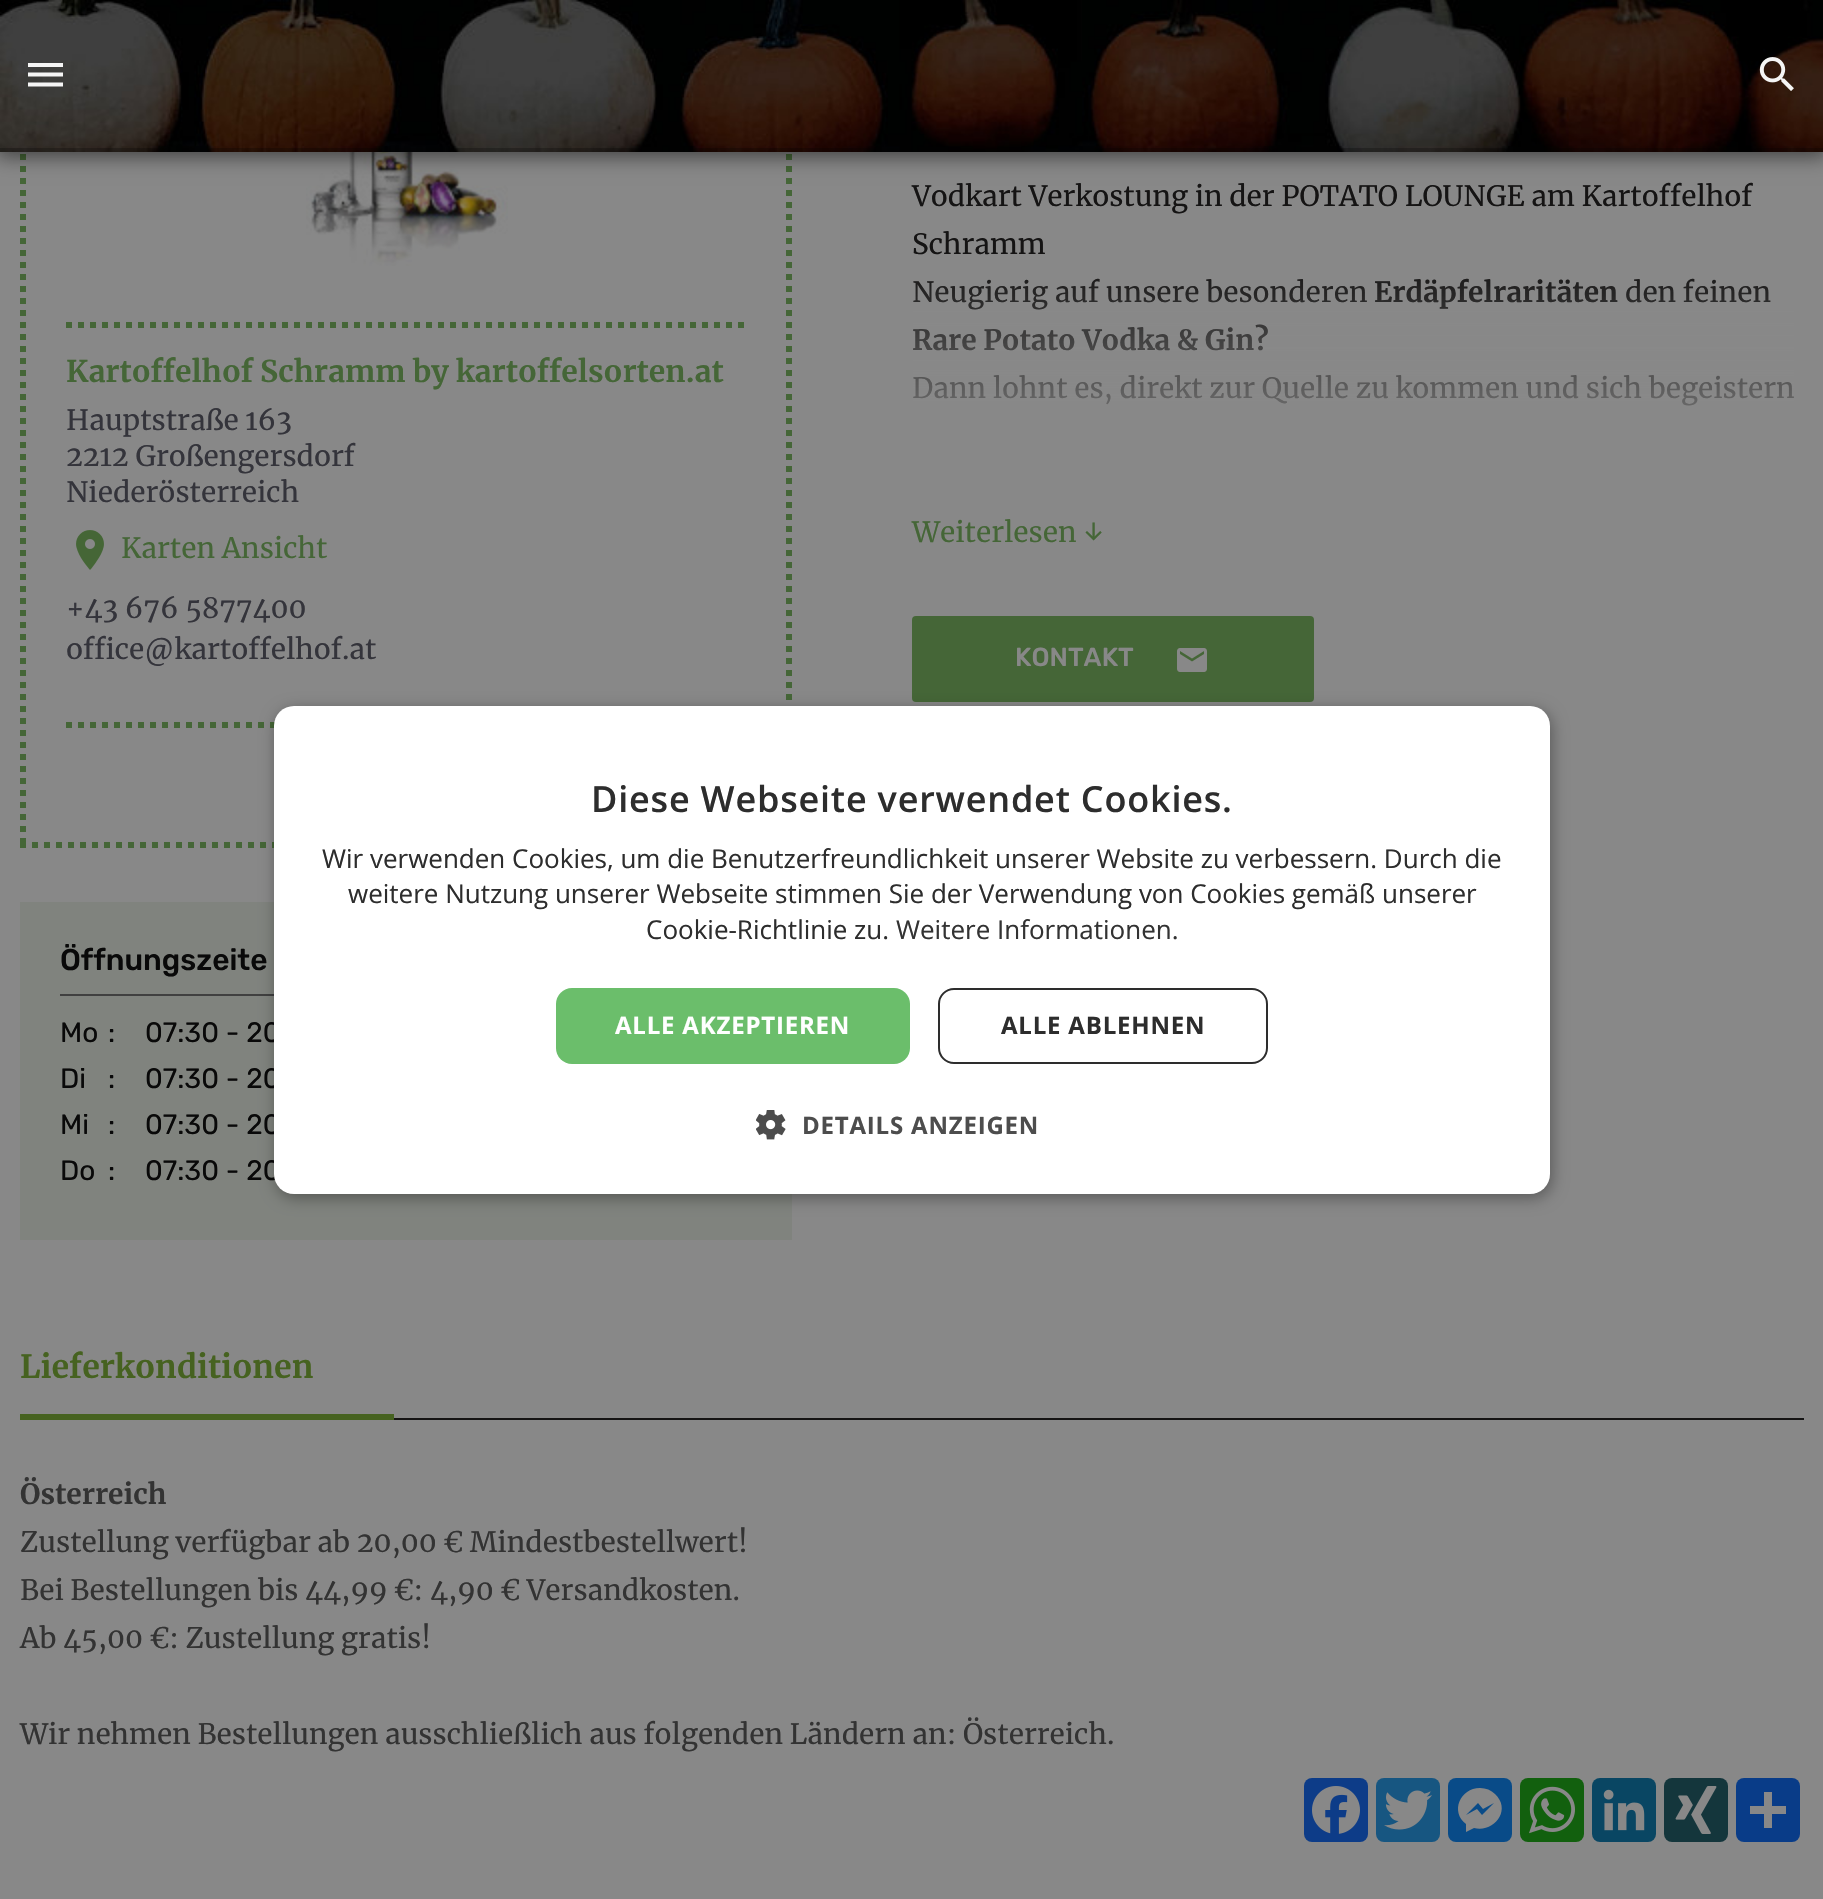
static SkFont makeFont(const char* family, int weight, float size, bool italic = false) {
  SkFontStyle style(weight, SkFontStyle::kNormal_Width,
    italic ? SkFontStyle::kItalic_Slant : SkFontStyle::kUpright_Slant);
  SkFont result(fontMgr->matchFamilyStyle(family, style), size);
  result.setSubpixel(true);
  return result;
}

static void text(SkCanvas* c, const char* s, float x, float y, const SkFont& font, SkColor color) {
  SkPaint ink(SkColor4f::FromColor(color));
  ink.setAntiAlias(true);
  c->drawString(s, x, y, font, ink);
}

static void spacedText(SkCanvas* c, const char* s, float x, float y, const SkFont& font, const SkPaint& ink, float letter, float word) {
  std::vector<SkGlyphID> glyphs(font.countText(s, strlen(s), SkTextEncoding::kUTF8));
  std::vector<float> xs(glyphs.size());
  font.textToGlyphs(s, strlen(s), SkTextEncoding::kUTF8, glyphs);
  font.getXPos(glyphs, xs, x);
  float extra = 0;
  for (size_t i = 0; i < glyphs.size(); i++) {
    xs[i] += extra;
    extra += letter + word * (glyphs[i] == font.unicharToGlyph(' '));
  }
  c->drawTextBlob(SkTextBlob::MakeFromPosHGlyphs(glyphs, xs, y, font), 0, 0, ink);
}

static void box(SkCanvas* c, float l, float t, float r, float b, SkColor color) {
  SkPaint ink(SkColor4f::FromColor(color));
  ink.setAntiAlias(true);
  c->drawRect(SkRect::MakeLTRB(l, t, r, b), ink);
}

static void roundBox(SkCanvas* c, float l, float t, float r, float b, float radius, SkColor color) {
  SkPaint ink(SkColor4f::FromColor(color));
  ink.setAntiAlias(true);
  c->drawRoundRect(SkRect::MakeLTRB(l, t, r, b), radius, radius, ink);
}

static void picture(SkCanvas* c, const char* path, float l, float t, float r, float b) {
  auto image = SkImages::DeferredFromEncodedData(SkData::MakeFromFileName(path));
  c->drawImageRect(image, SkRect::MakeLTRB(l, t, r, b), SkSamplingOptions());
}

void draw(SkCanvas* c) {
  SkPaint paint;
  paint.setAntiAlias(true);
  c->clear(0xff888888);
  paint.setStyle(SkPaint::kStroke_Style);
  paint.setStrokeWidth(6);
  paint.setColor(0xff456637);
  paint.setPathEffect(SkDashPathEffect::Make({{6, 6}}, 0));
  c->drawPath(SkPathBuilder().moveTo(789, -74).lineTo(789, 848).detach(), paint);
  paint.setPathEffect(nullptr);
  paint.setPathEffect(SkDashPathEffect::Make({{6, 6}}, 0));
  c->drawPath(SkPathBuilder().moveTo(20, 845).lineTo(792, 845).detach(), paint);
  paint.setPathEffect(nullptr);
  paint.setPathEffect(SkDashPathEffect::Make({{6, 6}}, 0));
  c->drawPath(SkPathBuilder().moveTo(23, -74).lineTo(23, 848).detach(), paint);
  paint.setPathEffect(nullptr);
  picture(c, "img_03.png", 306, 152, 508, 266);
  paint.setStyle(SkPaint::kFill_Style);
  paint.setColor(0x8c000000);
  paint.setMaskFilter(SkMaskFilter::MakeBlur(kNormal_SkBlurStyle, 10));
  c->drawRect(SkRect::MakeLTRB(-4, -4, 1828, 156), paint);
  paint.setMaskFilter(nullptr);
  picture(c, "img_01.png", 0, 0, 1823, 152);
  paint.setColor(0xfff5f5f5);
  c->drawPath(SkPathBuilder().moveTo(28, 63).lineTo(63, 63).lineTo(63, 67).lineTo(28, 67).close().moveTo(28, 76.5f).lineTo(28, 72.5f).lineTo(63, 72.5f).lineTo(63, 76.5f).close().moveTo(28, 86.5f).lineTo(28, 82.5f).lineTo(63, 82.5f).lineTo(63, 86.5f).close().detach(), paint);
  picture(c, "img_02.png", 1759, 57, 1794, 91);
  box(c, 0, 148, 1823, 152, 0x40000000);
  paint.setStyle(SkPaint::kStroke_Style);
  paint.setColor(0xff456637);
  paint.setPathEffect(SkDashPathEffect::Make({{6, 6}}, 0));
  c->drawPath(SkPathBuilder().moveTo(66, 325).lineTo(746, 325).detach(), paint);
  paint.setPathEffect(nullptr);
  SkFont face1 = makeFont("Merriweather", 700, 30);
  text(c, "Kartoffelhof Schramm by kartoffelsorten.at", 66, 382, face1, 0xff456637);
  SkFont face2 = makeFont("Merriweather", 400, 28);
  text(c, "Hauptstraße 163", 66, 430, face2, 0xff34343b);
  text(c, "2212 Großengersdorf", 66, 466, face2, 0xff34343b);
  text(c, "Niederösterreich", 66, 502, face2, 0xff34343b);
  picture(c, "img_04.png", 76, 530, 104, 570);
  text(c, "Karten Ansicht", 121, 558, face2, 0xff456637);
  text(c, "+43 676 5877400", 66, 618, face2, 0xff34343b);
  text(c, "office@kartoffelhof.at", 66, 659, face2, 0xff34343b);
  paint.setPathEffect(SkDashPathEffect::Make({{6, 6}}, 0));
  c->drawPath(SkPathBuilder().moveTo(66, 725).lineTo(746, 725).detach(), paint);
  paint.setPathEffect(nullptr);
  box(c, 20, 902, 792, 1240, 0xff80837e);
  SkFont face3 = makeFont("Rubik", 300, 30);
  text(c, "Öffnungszeite", 60, 970, face3, 0xff090909);
  box(c, 60, 994, 274, 996, 0xff404040);
  SkFont face4 = makeFont("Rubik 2", 300, 28);
  text(c, "Mo", 60, 1042, face4, 0xff090909);
  text(c, ":", 108, 1042, face4, 0xff090909);
  text(c, "07:30 - 20", 145, 1042, face4, 0xff090909);
  text(c, "Di", 60, 1088, face4, 0xff090909);
  text(c, ":", 108, 1088, face4, 0xff090909);
  text(c, "07:30 - 20", 145, 1088, face4, 0xff090909);
  text(c, "Mi", 60, 1134, face4, 0xff090909);
  text(c, ":", 108, 1134, face4, 0xff090909);
  text(c, "07:30 - 20", 145, 1134, face4, 0xff090909);
  text(c, "Do", 60, 1180, face4, 0xff090909);
  text(c, ":", 108, 1180, face4, 0xff090909);
  text(c, "07:30 - 20", 145, 1180, face4, 0xff090909);
  text(c, "Vodkart Verkostung in der POTATO LOUNGE am Kartoffelhof", 912, 206, face2, 0xff151414);
  text(c, "Schramm", 912, 254, face2, 0xff151414);
  text(c, "Neugierig auf unsere besonderen", 912, 302, face2, 0xff151414);
  SkFont face5 = makeFont("Merriweather", 700, 28);
  text(c, "Erdäpfelraritäten", 1374, 302, face5, 0xff151414);
  text(c, "den feinen", 1625, 302, face2, 0xff151414);
  text(c, "Rare Potato Vodka & Gin?", 912, 350, face5, 0xff151414);
  text(c, "Dann lohnt es, direkt zur Quelle zu kommen und sich begeistern", 912, 398, face2, 0xff151414);
  paint.setStyle(SkPaint::kFill_Style);
  {
    const SkColor colors[] = {0xff888888, 0x00888888};
    const float stops[] = {0, 1};
    const SkPoint ends[] = {{1358, 464}, {1358, 264}};
    paint.setShader(SkGradientShader::MakeLinear(ends, colors, stops, 2, SkTileMode::kClamp));
    paint.setAlpha(255);
  }
  c->drawRect(SkRect::MakeLTRB(913, 278, 1794, 406), paint);
  text(c, "Weiterlesen ↓", 912, 542, face2, 0xff456637);
  roundBox(c, 912, 616, 1314, 702, 4, 0xff456637);
  SkFont face6 = makeFont("Rubik", 300, 26);
  text(c, "KONTAKT", 1015, 666, face6, 0xff888888);
  picture(c, "img_05.png", 1177, 648, 1207, 672);
  box(c, 394, 1418, 1804, 1420, 0xff151414);
  SkFont face7 = makeFont("Merriweather", 700, 32);
  text(c, "Lieferkonditionen", 20, 1378, face7, 0xff466220);
  box(c, 20, 1414, 394, 1420, 0xff466220);
  text(c, "Österreich", 20, 1504, face5, 0xff333333);
  text(c, "Zustellung verfügbar ab 20,00 € Mindestbestellwert!", 20, 1552, face2, 0xff333333);
  text(c, "Bei Bestellungen bis 44,99 €: 4,90 € Versandkosten.", 20, 1600, face2, 0xff333333);
  text(c, "Ab 45,00 €: Zustellung gratis!", 20, 1648, face2, 0xff333333);
  text(c, "Wir nehmen Bestellungen ausschließlich aus folgenden Ländern an: Österreich.", 20, 1744, face2, 0xff333333);
  roundBox(c, 1304, 1778, 1368, 1842, 8, 0xff0d3c88);
  picture(c, "img_06.png", 1312, 1786, 1360, 1834);
  roundBox(c, 1376, 1778, 1440, 1842, 8, 0xff175681);
  picture(c, "img_07.png", 1384, 1790, 1432, 1830);
  roundBox(c, 1448, 1778, 1512, 1842, 8, 0xff094b88);
  paint.setShader(nullptr);
  paint.setColor(0xff888888);
  c->drawPath(SkPathBuilder().moveTo(1480, 1788).cubicTo(1460, 1788, 1450, 1812, 1466, 1824).lineTo(1466, 1832).lineTo(1474, 1828).cubicTo(1494, 1833, 1512, 1810, 1495, 1794).cubicTo(1491, 1790, 1486, 1788, 1480, 1788).moveTo(1482, 1815).lineTo(1477, 1809).lineTo(1466, 1815).lineTo(1478, 1803).lineTo(1483, 1809).lineTo(1494, 1803).close().detach(), paint);
  roundBox(c, 1520, 1778, 1584, 1842, 8, 0xff12600e);
  picture(c, "img_08.png", 1529, 1786, 1575, 1834);
  roundBox(c, 1592, 1778, 1656, 1842, 8, 0xff094663);
  picture(c, "img_09.png", 1603, 1789, 1645, 1831);
  roundBox(c, 1664, 1778, 1728, 1842, 8, 0xff14363c);
  picture(c, "img_10.png", 1675, 1786, 1717, 1834);
  roundBox(c, 1736, 1778, 1800, 1842, 8, 0xff093c88);
  box(c, 1764, 1792, 1772, 1828, 0xff888888);
  box(c, 1750, 1806, 1786, 1814, 0xff888888);
  paint.setColor(0x59000000);
  paint.setMaskFilter(SkMaskFilter::MakeBlur(kNormal_SkBlurStyle, 8));
  c->drawRoundRect(SkRect::MakeLTRB(276, 710, 1552, 1198), 20, 20, paint);
  paint.setMaskFilter(nullptr);
  roundBox(c, 274, 706, 1550, 1194, 20, 0xffffffff);
  SkFont face8 = makeFont("Open Sans", 600, 36);
  paint.setColor(0xff2d2d2d);
  spacedText(c, "Diese Webseite verwendet Cookies.", 591, 812, face8, paint, 0.8f, 0);
  SkFont face9 = makeFont("Open Sans", 400, 26);
  text(c, "Wir verwenden Cookies, um die Benutzerfreundlichkeit unserer Website zu verbessern. Durch die", 322, 868, face9, 0xff2d2d2d);
  text(c, "weitere Nutzung unserer Webseite stimmen Sie der Verwendung von Cookies gemäß unserer", 348, 903, face9, 0xff2d2d2d);
  text(c, "Cookie-Richtlinie zu.", 646, 939, face9, 0xff2d2d2d);
  text(c, "Weitere Informationen.", 896, 939, face9, 0xff333333);
  roundBox(c, 556, 988, 910, 1064, 16, 0xff6bbe6b);
  SkFont face10 = makeFont("Open Sans", 700, 24);
  paint.setColor(0xffffffff);
  spacedText(c, "ALLE AKZEPTIEREN", 615, 1034, face10, paint, 0.8f, 0);
  paint.setStyle(SkPaint::kStroke_Style);
  paint.setStrokeWidth(2);
  paint.setColor(0xff2d2d2d);
  c->drawRoundRect(SkRect::MakeLTRB(939, 989, 1267, 1063), 15, 15, paint);
  paint.setStyle(SkPaint::kFill_Style);
  spacedText(c, "ALLE ABLEHNEN", 1001, 1034, face10, paint, 0.8f, 0);
  picture(c, "img_11.png", 756, 1110, 786, 1140);
  paint.setColor(0xff4d4d4d);
  spacedText(c, "DETAILS ANZEIGEN", 802, 1134, face10, paint, 0.8f, 0);
}
